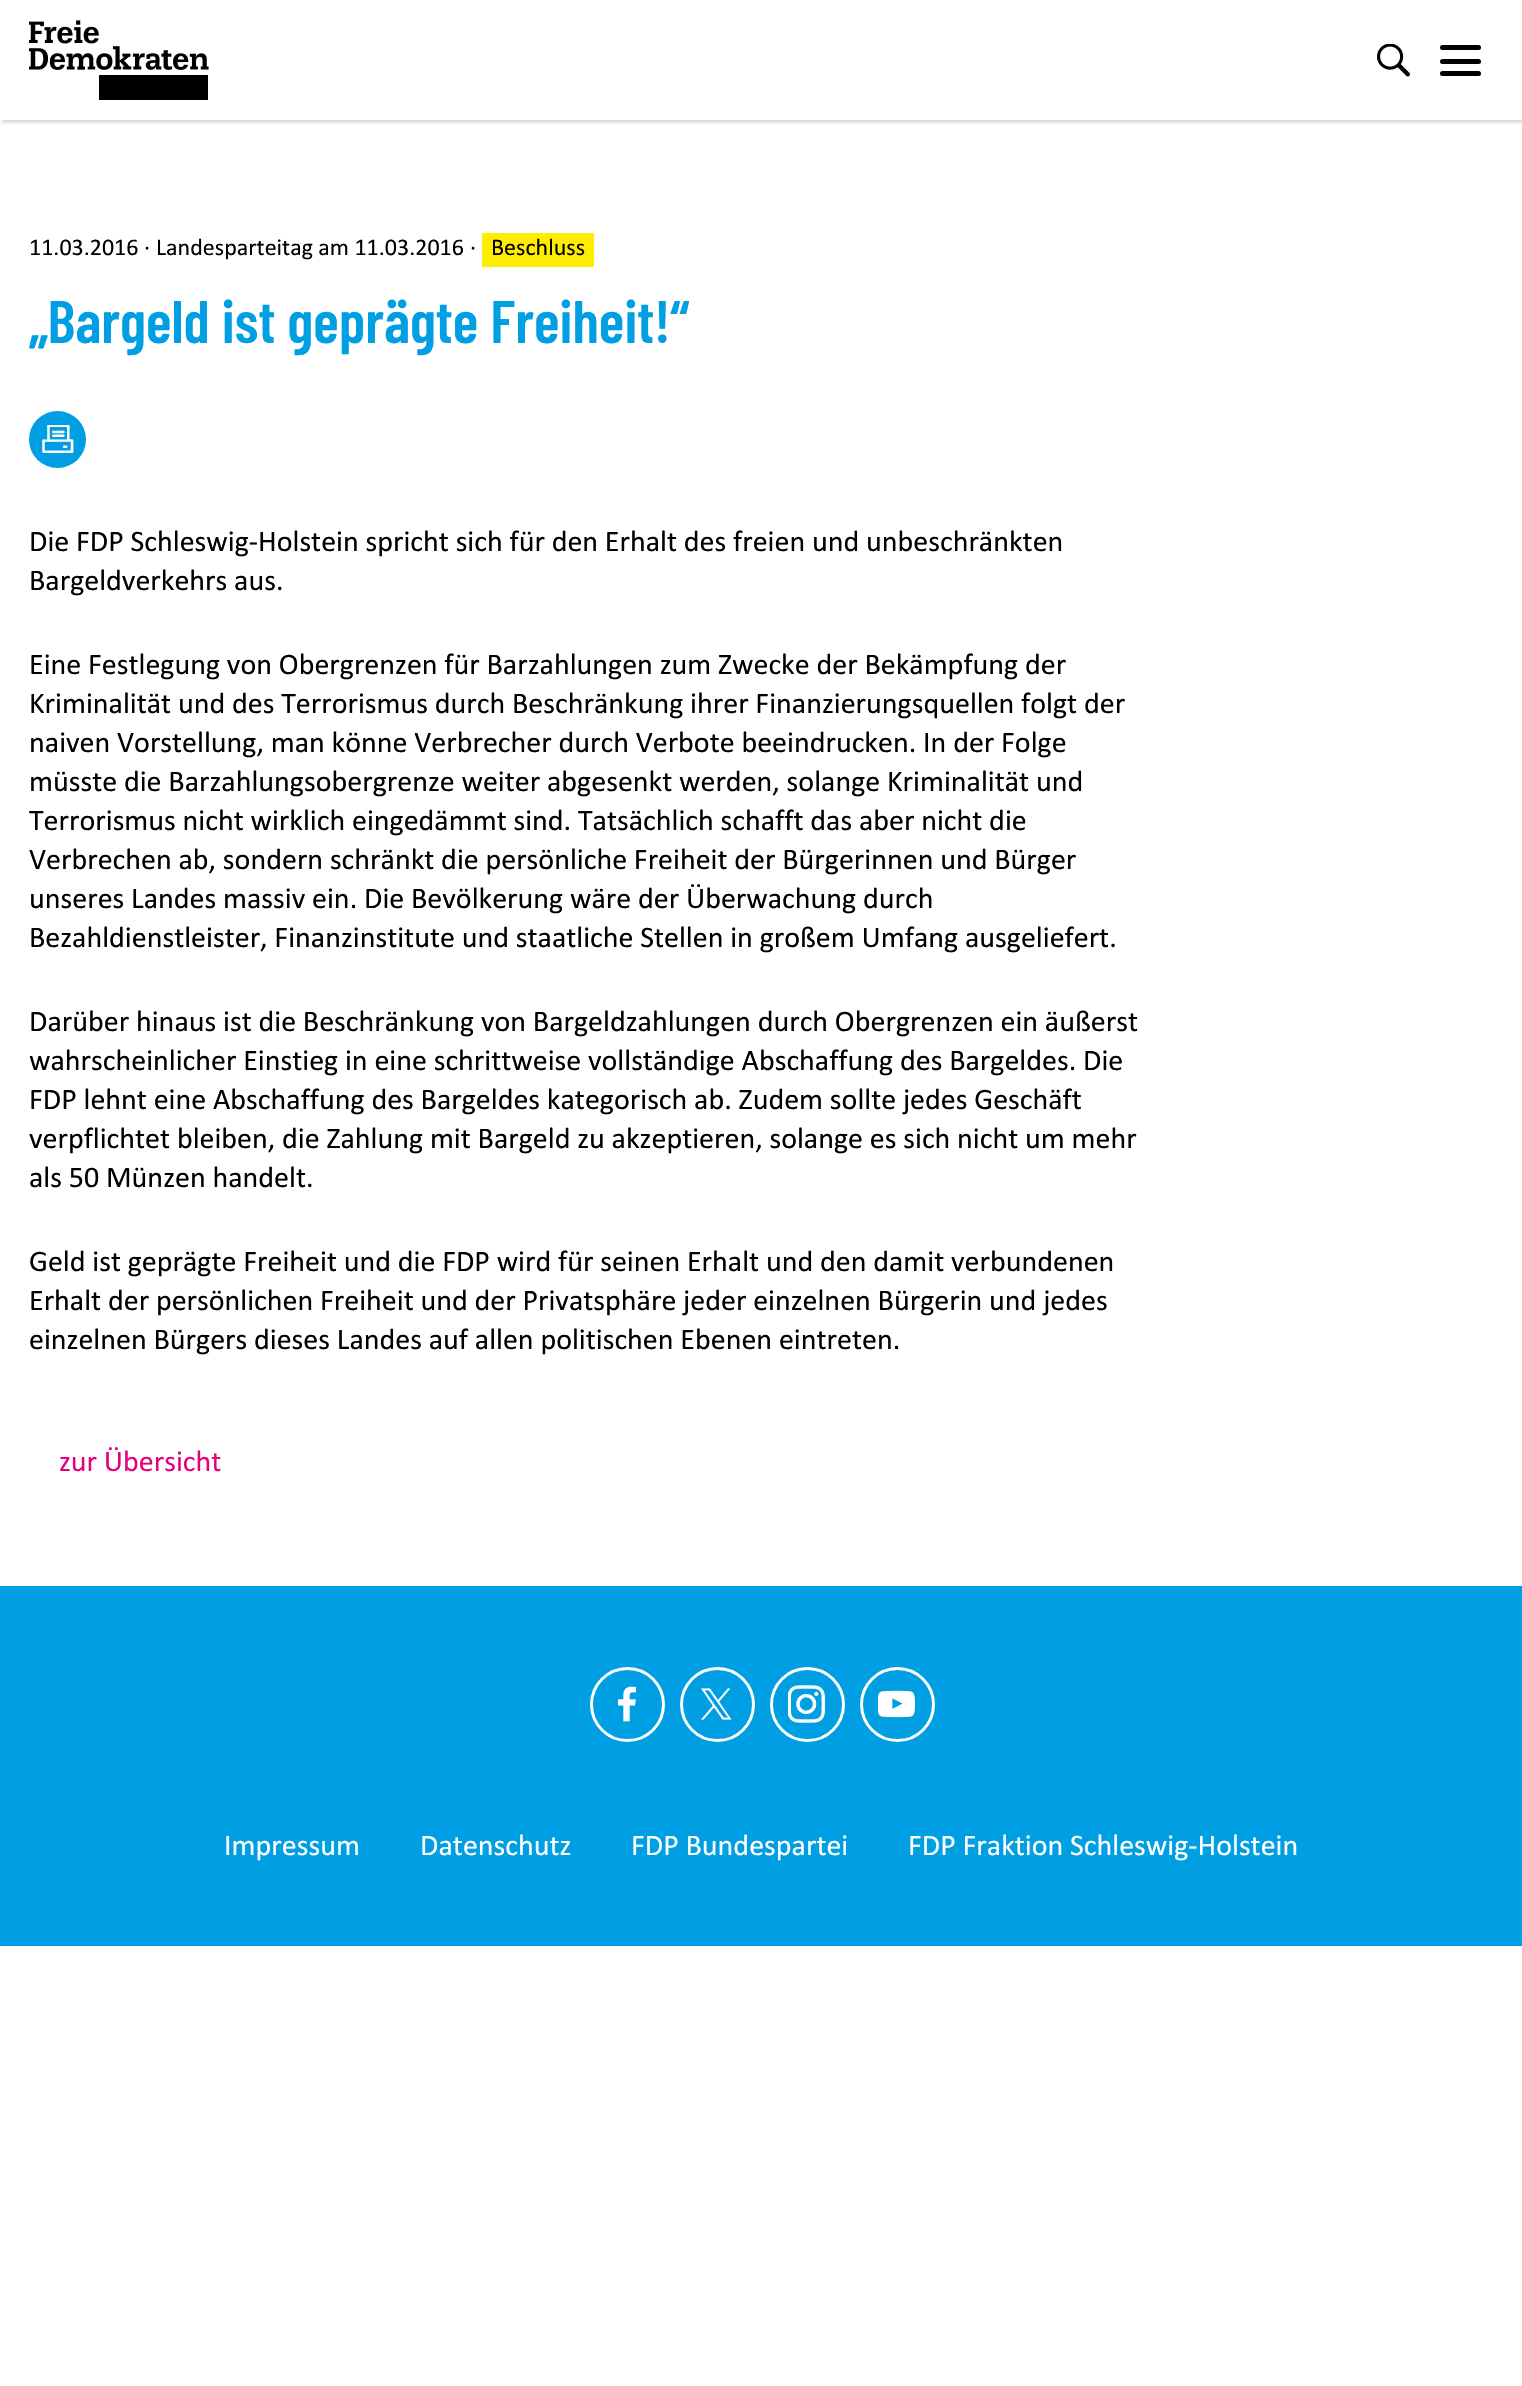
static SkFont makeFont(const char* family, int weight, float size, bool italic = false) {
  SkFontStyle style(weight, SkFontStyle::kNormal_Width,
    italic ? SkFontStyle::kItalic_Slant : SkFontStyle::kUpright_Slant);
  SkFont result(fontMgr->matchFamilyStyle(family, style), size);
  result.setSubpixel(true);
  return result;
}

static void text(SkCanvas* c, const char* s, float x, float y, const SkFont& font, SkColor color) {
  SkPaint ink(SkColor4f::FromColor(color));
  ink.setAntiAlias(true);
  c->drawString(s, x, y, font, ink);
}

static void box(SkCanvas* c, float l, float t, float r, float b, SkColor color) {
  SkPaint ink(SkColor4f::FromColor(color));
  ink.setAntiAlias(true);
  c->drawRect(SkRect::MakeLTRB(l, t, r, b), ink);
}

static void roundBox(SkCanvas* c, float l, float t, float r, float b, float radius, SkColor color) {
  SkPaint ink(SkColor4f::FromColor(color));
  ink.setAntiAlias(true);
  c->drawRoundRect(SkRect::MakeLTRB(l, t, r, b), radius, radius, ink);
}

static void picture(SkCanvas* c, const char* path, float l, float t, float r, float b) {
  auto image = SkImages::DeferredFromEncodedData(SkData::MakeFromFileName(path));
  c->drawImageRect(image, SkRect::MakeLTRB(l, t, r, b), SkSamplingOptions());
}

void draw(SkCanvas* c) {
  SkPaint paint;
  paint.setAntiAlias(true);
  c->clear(0xffffffff);
  c->save();
  c->clipRect(SkRect::MakeLTRB(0, 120, 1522, 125));
  paint.setColor(0x33000000);
  paint.setMaskFilter(SkMaskFilter::MakeBlur(kNormal_SkBlurStyle, 2));
  c->drawRect(SkRect::MakeLTRB(2, 2, 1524, 122), paint);
  paint.setMaskFilter(nullptr);
  c->restore();
  picture(c, "img_01.png", 29, 20, 209, 100);
  picture(c, "img_02.png", 1377, 44, 1410, 77);
  roundBox(c, 1440, 45, 1481, 50, 2.5f, 0xff000000);
  roundBox(c, 1440, 59, 1481, 64, 2.5f, 0xff000000);
  roundBox(c, 1440, 71, 1481, 76, 2.5f, 0xff000000);
  SkFont face1 = makeFont("Calibri", 400, 24);
  text(c, "11.03.2016", 29, 255, face1, 0xff000000);
  text(c, "·", 144, 255, face1, 0xff000000);
  text(c, "Landesparteitag am 11.03.2016", 156, 255, face1, 0xff000000);
  text(c, "·", 470, 255, face1, 0xff000000);
  box(c, 482, 233, 594, 267, 0xffffed00);
  text(c, "Beschluss", 491, 255, face1, 0xff000000);
  SkFont face2 = makeFont("Barlow Condensed", 600, 60);
  text(c, "„Bargeld ist geprägte Freiheit!“", 29, 343, face2, 0xff009ee3);
  paint.setColor(0xff009ee3);
  c->drawCircle(57.5f, 439.5f, 28.5f, paint);
  picture(c, "img_03.png", 42, 425, 74, 453);
  SkFont face3 = makeFont("Calibri", 400, 30);
  text(c, "Die FDP Schleswig-Holstein spricht sich für den Erhalt des freien und unbeschränkten", 29, 551, face3, 0xff000000);
  text(c, "Bargeldverkehrs aus.", 29, 590, face3, 0xff000000);
  text(c, "Eine Festlegung von Obergrenzen für Barzahlungen zum Zwecke der Bekämpfung der", 29, 674, face3, 0xff000000);
  text(c, "Kriminalität und des Terrorismus durch Beschränkung ihrer Finanzierungsquellen folgt der", 29, 713, face3, 0xff000000);
  text(c, "naiven Vorstellung, man könne Verbrecher durch Verbote beeindrucken. In der Folge", 29, 752, face3, 0xff000000);
  text(c, "müsste die Barzahlungsobergrenze weiter abgesenkt werden, solange Kriminalität und", 29, 791, face3, 0xff000000);
  text(c, "Terrorismus nicht wirklich eingedämmt sind. Tatsächlich schafft das aber nicht die", 29, 830, face3, 0xff000000);
  text(c, "Verbrechen ab, sondern schränkt die persönliche Freiheit der Bürgerinnen und Bürger", 29, 869, face3, 0xff000000);
  text(c, "unseres Landes massiv ein. Die Bevölkerung wäre der Überwachung durch", 29, 908, face3, 0xff000000);
  text(c, "Bezahldienstleister, Finanzinstitute und staatliche Stellen in großem Umfang ausgeliefert.", 29, 947, face3, 0xff000000);
  text(c, "Darüber hinaus ist die Beschränkung von Bargeldzahlungen durch Obergrenzen ein äußerst", 29, 1031, face3, 0xff000000);
  text(c, "wahrscheinlicher Einstieg in eine schrittweise vollständige Abschaffung des Bargeldes. Die", 29, 1070, face3, 0xff000000);
  text(c, "FDP lehnt eine Abschaffung des Bargeldes kategorisch ab. Zudem sollte jedes Geschäft", 29, 1109, face3, 0xff000000);
  text(c, "verpflichtet bleiben, die Zahlung mit Bargeld zu akzeptieren, solange es sich nicht um mehr", 29, 1148, face3, 0xff000000);
  text(c, "als 50 Münzen handelt.", 29, 1187, face3, 0xff000000);
  text(c, "Geld ist geprägte Freiheit und die FDP wird für seinen Erhalt und den damit verbundenen", 29, 1271, face3, 0xff000000);
  text(c, "Erhalt der persönlichen Freiheit und der Privatsphäre jeder einzelnen Bürgerin und jedes", 29, 1310, face3, 0xff000000);
  text(c, "einzelnen Bürgers dieses Landes auf allen politischen Ebenen eintreten.", 29, 1349, face3, 0xff000000);
  text(c, "zur Übersicht", 59, 1471, face3, 0xffe5007d);
  box(c, 0, 1586, 1522, 1946, 0xff009ee3);
  paint.setStyle(SkPaint::kStroke_Style);
  paint.setStrokeWidth(3);
  paint.setColor(0xffffffff);
  c->drawCircle(627.5f, 1704.5f, 36, paint);
  picture(c, "img_04.png", 618, 1686, 636, 1722);
  c->drawCircle(717.5f, 1704.5f, 36, paint);
  picture(c, "img_05.png", 701, 1688, 732, 1720);
  c->drawCircle(807.5f, 1704.5f, 36, paint);
  picture(c, "img_06.png", 788, 1685, 825, 1723);
  c->drawCircle(897.5f, 1704.5f, 36, paint);
  picture(c, "img_07.png", 878, 1690, 915, 1718);
  text(c, "Impressum", 224, 1855, face3, 0xffffffff);
  text(c, "Datenschutz", 420, 1855, face3, 0xffffffff);
  text(c, "FDP Bundespartei", 631, 1855, face3, 0xffffffff);
  text(c, "FDP Fraktion Schleswig-Holstein", 908, 1855, face3, 0xffffffff);
}
